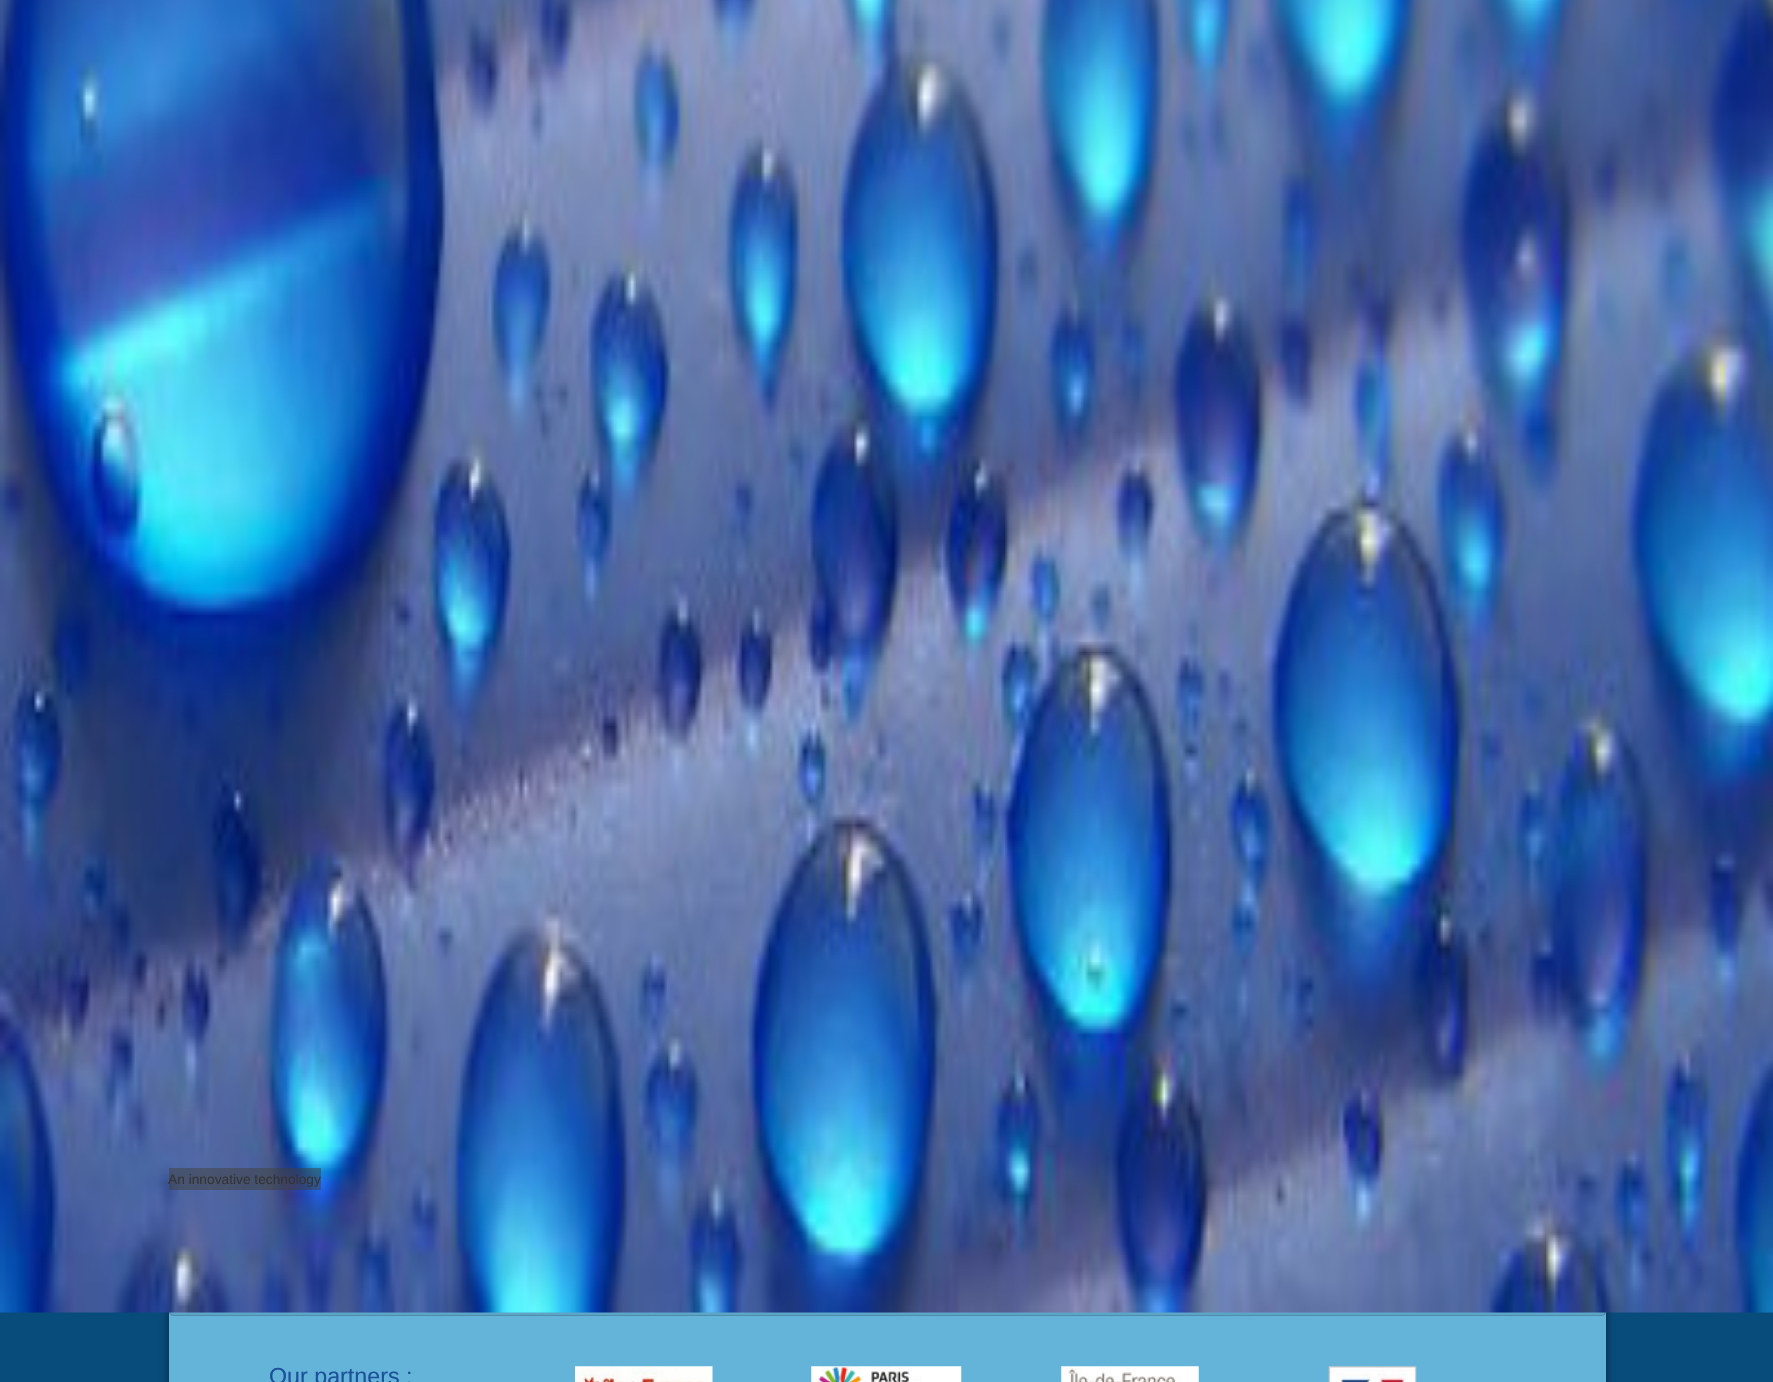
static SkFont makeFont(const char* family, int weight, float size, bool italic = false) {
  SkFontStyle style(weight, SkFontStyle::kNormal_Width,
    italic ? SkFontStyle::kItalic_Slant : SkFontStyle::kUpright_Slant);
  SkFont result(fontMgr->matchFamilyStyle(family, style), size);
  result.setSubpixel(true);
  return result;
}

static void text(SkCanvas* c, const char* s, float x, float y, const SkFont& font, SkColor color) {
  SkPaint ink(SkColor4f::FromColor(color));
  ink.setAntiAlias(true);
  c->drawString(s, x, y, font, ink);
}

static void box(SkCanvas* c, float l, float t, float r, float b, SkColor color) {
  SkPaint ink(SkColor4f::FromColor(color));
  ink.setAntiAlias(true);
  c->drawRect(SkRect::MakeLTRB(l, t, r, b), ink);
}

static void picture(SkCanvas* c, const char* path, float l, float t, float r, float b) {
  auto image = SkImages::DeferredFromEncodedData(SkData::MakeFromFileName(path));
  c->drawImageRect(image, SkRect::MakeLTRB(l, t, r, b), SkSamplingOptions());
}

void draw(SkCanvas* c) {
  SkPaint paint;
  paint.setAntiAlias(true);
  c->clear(0xff084c7b);
  paint.setColor(0x80000000);
  paint.setMaskFilter(SkMaskFilter::MakeBlur(kNormal_SkBlurStyle, 5));
  c->drawRoundRect(SkRect::MakeLTRB(169, -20, 1606, 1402), 5, 5, paint);
  paint.setMaskFilter(nullptr);
  box(c, 169, 1312, 1606, 1382, 0xff64b4d9);
  paint.setColor(0xff5ca5c7);
  c->drawPath(SkPathBuilder().moveTo(169, 1210).lineTo(1601, 1210).cubicTo(1604, 1210, 1606, 1212, 1606, 1215).lineTo(1606, 1311).cubicTo(1606, 1314, 1604, 1316, 1601, 1316).lineTo(174, 1316).cubicTo(171, 1316, 169, 1314, 169, 1311).close().detach(), paint);
  paint.setColor(0x26000000);
  c->drawPath(SkPathBuilder(SkPathFillType::kEvenOdd).moveTo(169, 1210).lineTo(1601, 1210).cubicTo(1604, 1210, 1606, 1212, 1606, 1215).lineTo(1606, 1311).cubicTo(1606, 1314, 1604, 1316, 1601, 1316).lineTo(174, 1316).cubicTo(171, 1316, 169, 1314, 169, 1311).close().moveTo(170, 1210).lineTo(1601, 1210).cubicTo(1603, 1210, 1605, 1212, 1605, 1215).lineTo(1605, 1311).cubicTo(1605, 1313, 1603, 1315, 1601, 1315).lineTo(174, 1315).cubicTo(172, 1315, 170, 1313, 170, 1311).close().detach(), paint);
  picture(c, "img_01.png", 0, 0, 1773, 1313);
  box(c, 169, 1168, 321, 1190, 0x80403f3b);
  SkFont face1 = makeFont("Liberation Sans", 400, 13.75f);
  text(c, "An innovative technology", 168, 1184, face1, 0xff333333);
  SkFont face2 = makeFont("Liberation Sans", 400, 23.25f);
  text(c, "Our partners :", 269, 1384, face2, 0xff1c519a);
  picture(c, "img_02.png", 575, 1366, 713, 1382);
  picture(c, "img_03.png", 811, 1366, 962, 1382);
  picture(c, "img_04.png", 1061, 1366, 1199, 1382);
  picture(c, "img_05.png", 1328, 1366, 1417, 1382);
}
